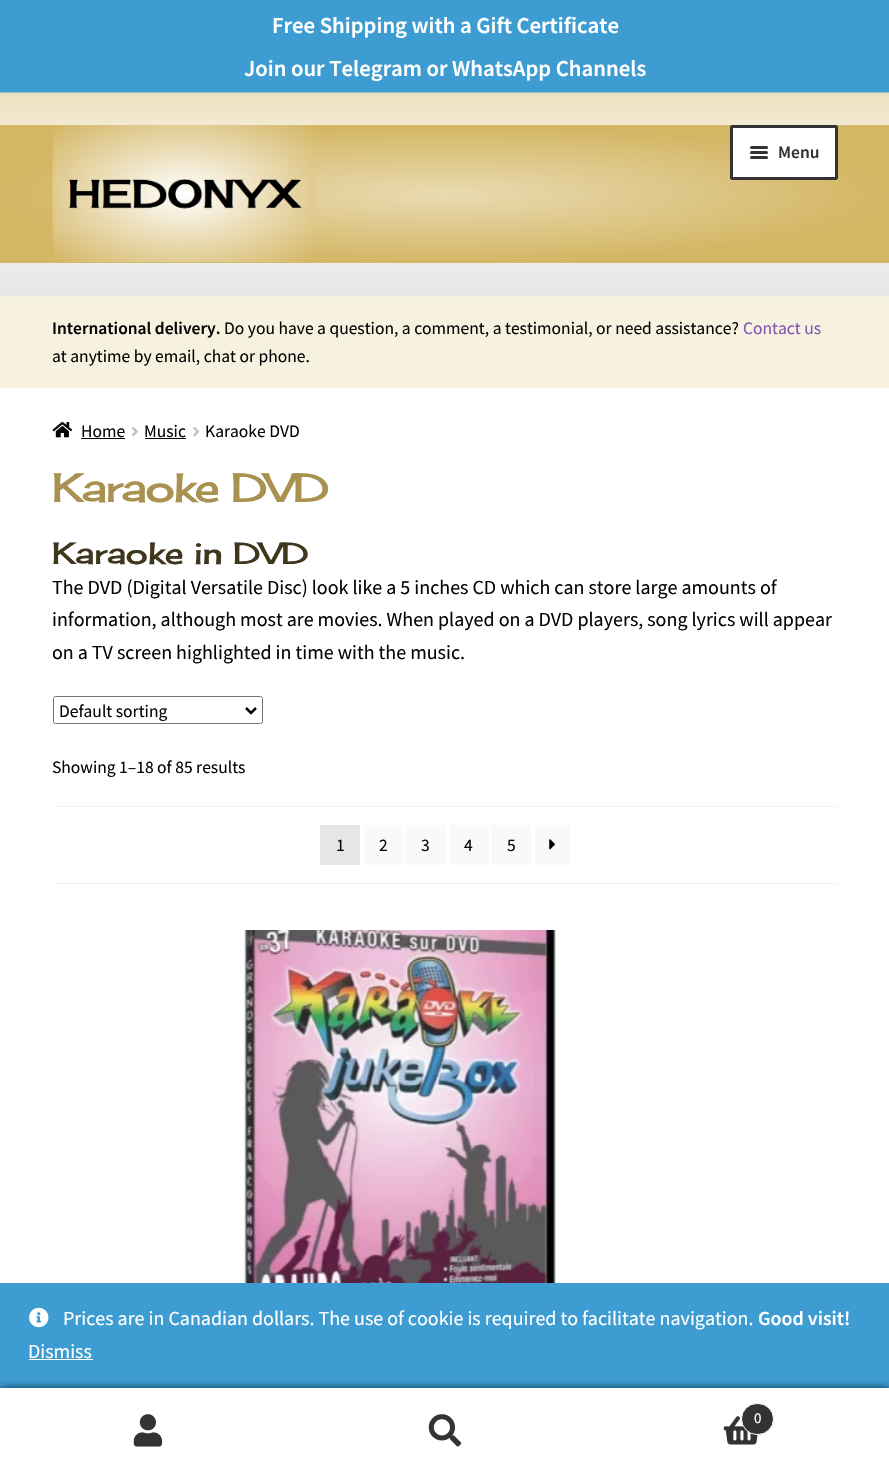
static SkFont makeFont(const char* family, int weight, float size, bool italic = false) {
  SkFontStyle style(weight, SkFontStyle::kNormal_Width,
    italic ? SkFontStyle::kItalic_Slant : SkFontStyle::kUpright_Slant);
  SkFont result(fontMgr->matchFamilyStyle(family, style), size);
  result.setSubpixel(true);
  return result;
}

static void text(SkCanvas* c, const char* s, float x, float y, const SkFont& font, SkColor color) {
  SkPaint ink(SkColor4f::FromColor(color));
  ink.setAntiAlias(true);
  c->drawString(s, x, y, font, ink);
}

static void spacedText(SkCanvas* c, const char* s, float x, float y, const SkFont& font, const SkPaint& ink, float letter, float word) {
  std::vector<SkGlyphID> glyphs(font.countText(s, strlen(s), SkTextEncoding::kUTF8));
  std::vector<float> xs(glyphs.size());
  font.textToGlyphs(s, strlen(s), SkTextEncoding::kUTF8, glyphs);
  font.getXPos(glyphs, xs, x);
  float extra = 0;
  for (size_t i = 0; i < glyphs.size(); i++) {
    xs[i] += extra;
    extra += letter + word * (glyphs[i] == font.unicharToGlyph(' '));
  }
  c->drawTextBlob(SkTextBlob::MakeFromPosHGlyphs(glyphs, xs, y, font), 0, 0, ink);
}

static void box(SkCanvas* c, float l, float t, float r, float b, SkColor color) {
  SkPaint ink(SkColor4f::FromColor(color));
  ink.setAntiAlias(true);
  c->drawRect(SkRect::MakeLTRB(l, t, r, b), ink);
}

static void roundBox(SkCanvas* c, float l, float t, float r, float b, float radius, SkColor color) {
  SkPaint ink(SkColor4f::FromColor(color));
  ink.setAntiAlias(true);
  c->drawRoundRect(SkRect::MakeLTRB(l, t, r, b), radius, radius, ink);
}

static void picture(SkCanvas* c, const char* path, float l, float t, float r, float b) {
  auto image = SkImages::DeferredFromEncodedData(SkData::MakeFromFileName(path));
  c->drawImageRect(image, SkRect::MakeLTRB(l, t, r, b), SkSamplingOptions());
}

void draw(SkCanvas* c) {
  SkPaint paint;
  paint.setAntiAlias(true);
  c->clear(0xffffffff);
  box(c, 0, 0, 889, 93, 0xff3d9cd2);
  SkFont face1 = makeFont("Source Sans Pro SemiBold", 600, 22.75f);
  text(c, "Free Shipping with a Gift Certificate", 272, 33, face1, 0xffffffff);
  text(c, "Join our Telegram or WhatsApp Channels", 244, 76, face1, 0xffffffff);
  box(c, 0, 296, 889, 388, 0xfff7f1e0);
  picture(c, "img_01.png", 0, 92, 889, 297);
  {
    const SkColor colors[] = {0xffe9dab1, 0xffd4b664};
    const float stops[] = {0, 1};
    SkMatrix m = SkMatrix::Translate(445, 194).preScale(445, 69);
    paint.setShader(SkGradientShader::MakeRadial({0, 0}, 1, colors, stops, 2, SkTileMode::kClamp, 0, &m));
    paint.setAlpha(255);
  }
  c->drawRect(SkRect::MakeLTRB(0, 125, 889, 263), paint);
  picture(c, "img_02.png", 52, 125, 315, 263);
  paint.setShader(nullptr);
  paint.setColor(0xffffffff);
  c->drawRoundRect(SkRect::MakeLTRB(731.5f, 126.5f, 836.5f, 178.5f), 1, 1, paint);
  paint.setStyle(SkPaint::kStroke_Style);
  paint.setStrokeWidth(3);
  paint.setColor(0xff333333);
  c->drawRoundRect(SkRect::MakeLTRB(731.5f, 126.5f, 836.5f, 178.5f), 1, 1, paint);
  roundBox(c, 750, 146, 768, 149, 1.5f, 0xff333333);
  roundBox(c, 750, 151, 768, 154, 1.5f, 0xff333333);
  SkFont face2 = makeFont("Source Sans Pro SemiBold", 600, 17.5f);
  text(c, "Menu", 778, 158, face2, 0xff333333);
  roundBox(c, 750, 156, 768, 159, 1.5f, 0xff333333);
  text(c, "International delivery.", 52, 334, face2, 0xff050505);
  SkFont face3 = makeFont("Source Sans Pro", 400, 17.5f);
  text(c, "Do you have a question, a comment, a testimonial, or need assistance?", 224, 334, face3, 0xff050505);
  text(c, "Contact us", 743, 334, face3, 0xff7f54b3);
  text(c, "at anytime by email, chat or phone.", 52, 362, face3, 0xff050505);
  picture(c, "img_03.png", 52, 422, 73, 438);
  text(c, "Home", 81, 437, face3, 0xff050505);
  box(c, 81, 438, 125, 439, 0xff050505);
  picture(c, "img_04.png", 132, 427, 138, 437);
  text(c, "Music", 144, 437, face3, 0xff050505);
  box(c, 145, 438, 186, 439, 0xff050505);
  picture(c, "img_05.png", 193, 427, 200, 437);
  text(c, "Karaoke DVD", 205, 437, face3, 0xff050505);
  SkFont face4 = makeFont("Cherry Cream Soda", 400, 40);
  paint.setStyle(SkPaint::kFill_Style);
  paint.setColor(0xffa99150);
  spacedText(c, "Karaoke DVD", 52, 502, face4, paint, -1.25f, 0);
  SkFont face5 = makeFont("Cherry Cream Soda", 400, 30);
  text(c, "Karaoke in DVD", 52, 564, face5, 0xff3f361e);
  SkFont face6 = makeFont("Source Sans Pro", 400, 20);
  text(c, "The DVD (Digital Versatile Disc) look like a 5 inches CD which can store large amounts of", 52, 594, face6, 0xff050505);
  text(c, "information, although most are movies. When played on a DVD players, song lyrics will appear", 52, 626, face6, 0xff050505);
  text(c, "on a TV screen highlighted in time with the music.", 52, 659, face6, 0xff050505);
  paint.setStyle(SkPaint::kStroke_Style);
  paint.setStrokeWidth(1);
  paint.setColor(0xff767676);
  c->drawRoundRect(SkRect::MakeLTRB(53.5f, 696.5f, 262.5f, 723.5f), 2, 2, paint);
  paint.setStrokeWidth(2.5f);
  paint.setColor(0xff000000);
  c->drawPath(SkPathBuilder().moveTo(246, 708).lineTo(251, 713).lineTo(256, 708).detach(), paint);
  text(c, "Default sorting", 59, 717, face3, 0xff050505);
  text(c, "Showing 1–18 of 85 results", 52, 773, face3, 0xff050505);
  box(c, 53, 806, 838, 807, 0xfff2f2f2);
  box(c, 53, 883, 838, 884, 0xfff2f2f2);
  box(c, 320, 825, 360, 865, 0xffe6e6e6);
  text(c, "1", 336, 851, face3, 0xff050505);
  box(c, 364, 825, 403, 865, 0xfff9f9f9);
  text(c, "2", 379, 851, face3, 0xff050505);
  box(c, 406, 825, 445, 865, 0xfff9f9f9);
  text(c, "3", 421, 851, face3, 0xff050505);
  box(c, 449, 825, 489, 865, 0xfff9f9f9);
  text(c, "4", 464, 851, face3, 0xff050505);
  box(c, 491, 825, 531, 865, 0xfff9f9f9);
  text(c, "5", 507, 851, face3, 0xff050505);
  box(c, 535, 825, 570, 865, 0xfff9f9f9);
  picture(c, "img_06.png", 549, 839, 555, 850);
  picture(c, "img_07.png", 244, 930, 556, 1283);
  box(c, 0, 1283, 889, 1388, 0xff3d9cd2);
  paint.setStyle(SkPaint::kFill_Style);
  paint.setColor(0xb3000000);
  paint.setMaskFilter(SkMaskFilter::MakeBlur(kNormal_SkBlurStyle, 4));
  c->drawRect(SkRect::MakeLTRB(0, 1388, 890, 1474), paint);
  paint.setMaskFilter(nullptr);
  box(c, 0, 1388, 889, 1389, 0xffffffff);
  box(c, 0, 1389, 889, 1473, 0xffffffff);
  picture(c, "img_08.png", 133, 1414, 163, 1447);
  picture(c, "img_09.png", 428, 1414, 462, 1447);
  picture(c, "img_10.png", 723, 1416, 758, 1445);
  paint.setColor(0xff333333);
  c->drawRoundRect(SkRect::MakeLTRB(741.5f, 1403.5f, 773.5f, 1434.5f), 15.5f, 15.5f, paint);
  paint.setStyle(SkPaint::kStroke_Style);
  paint.setStrokeWidth(1);
  paint.setColor(0xffffffff);
  c->drawRoundRect(SkRect::MakeLTRB(741.5f, 1403.5f, 773.5f, 1434.5f), 15.5f, 15.5f, paint);
  SkFont face7 = makeFont("Source Sans Pro", 400, 15);
  text(c, "0", 754, 1423, face7, 0xffffffff);
  picture(c, "img_11.png", 29, 1307, 49, 1328);
  text(c, "Prices are in Canadian dollars. The use of cookie is required to facilitate navigation.", 63, 1325, face6, 0xffffffff);
  SkFont face8 = makeFont("Source Sans Pro SemiBold", 600, 20);
  text(c, "Good visit!", 758, 1325, face8, 0xffffffff);
  text(c, "Dismiss", 28, 1358, face6, 0xffffffff);
  box(c, 29, 1359, 93, 1360, 0xffffffff);
}
